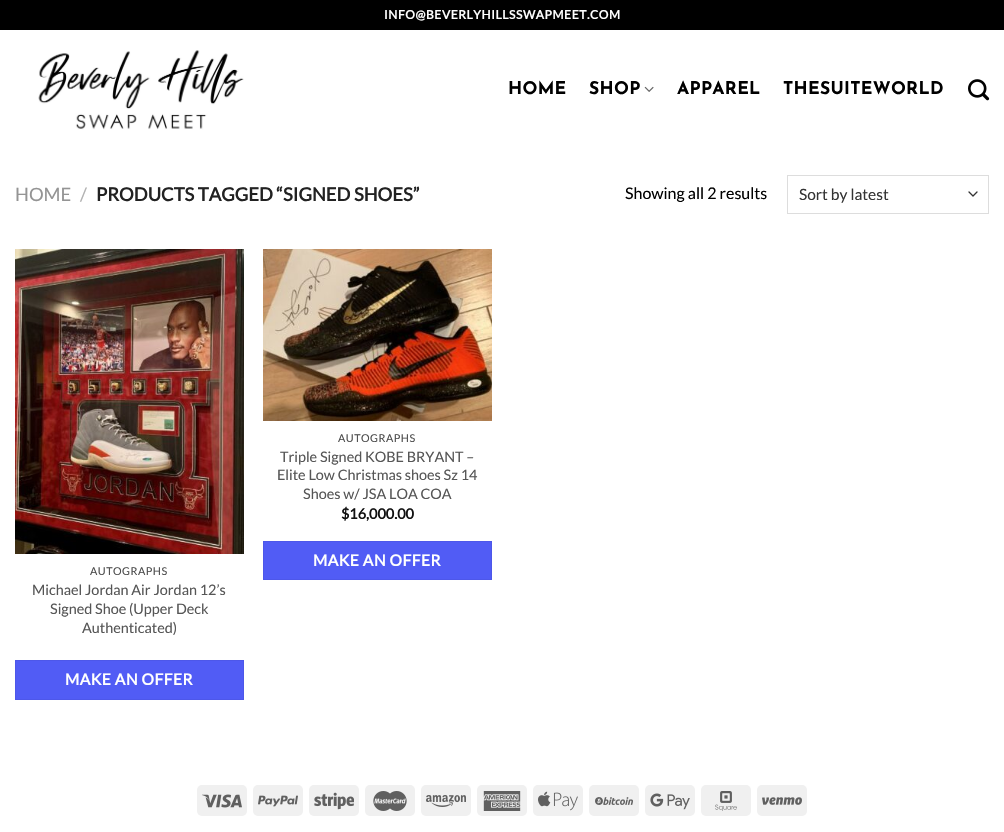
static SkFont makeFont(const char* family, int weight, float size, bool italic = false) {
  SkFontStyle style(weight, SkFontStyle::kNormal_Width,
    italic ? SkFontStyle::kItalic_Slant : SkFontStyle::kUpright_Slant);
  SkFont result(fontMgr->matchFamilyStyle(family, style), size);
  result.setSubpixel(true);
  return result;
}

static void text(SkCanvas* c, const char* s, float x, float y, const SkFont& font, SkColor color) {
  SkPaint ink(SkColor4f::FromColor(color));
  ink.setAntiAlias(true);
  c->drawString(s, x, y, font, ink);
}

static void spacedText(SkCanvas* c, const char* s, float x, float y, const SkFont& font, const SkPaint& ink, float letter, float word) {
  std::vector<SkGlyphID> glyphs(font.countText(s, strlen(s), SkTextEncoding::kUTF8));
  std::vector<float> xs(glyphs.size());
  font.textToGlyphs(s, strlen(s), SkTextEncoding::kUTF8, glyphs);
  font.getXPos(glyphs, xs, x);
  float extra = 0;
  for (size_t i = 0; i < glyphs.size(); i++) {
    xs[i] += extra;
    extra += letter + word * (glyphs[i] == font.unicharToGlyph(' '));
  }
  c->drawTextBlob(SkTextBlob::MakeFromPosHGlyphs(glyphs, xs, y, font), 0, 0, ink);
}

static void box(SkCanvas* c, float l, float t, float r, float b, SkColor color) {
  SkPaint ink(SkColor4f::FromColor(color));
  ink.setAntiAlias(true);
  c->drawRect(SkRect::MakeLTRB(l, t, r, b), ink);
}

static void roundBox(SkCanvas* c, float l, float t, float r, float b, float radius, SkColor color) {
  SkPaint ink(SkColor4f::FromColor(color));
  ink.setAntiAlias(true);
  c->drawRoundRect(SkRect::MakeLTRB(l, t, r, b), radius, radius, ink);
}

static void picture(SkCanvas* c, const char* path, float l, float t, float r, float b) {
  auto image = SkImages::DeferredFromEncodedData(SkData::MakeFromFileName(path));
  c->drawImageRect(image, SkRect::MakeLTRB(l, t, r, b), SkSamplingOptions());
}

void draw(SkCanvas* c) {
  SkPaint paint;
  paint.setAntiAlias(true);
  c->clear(0xffffffff);
  box(c, 0, 0, 1004, 30, 0xff000000);
  SkFont face1 = makeFont("Lato", 700, 12);
  paint.setColor(0xffffffff);
  spacedText(c, "INFO@BEVERLYHILLSSWAPMEET.COM", 384, 19, face1, paint, 0.6f, 0);
  picture(c, "img_01.png", 38, 50, 244, 130);
  SkFont face2 = makeFont("Josefin Sans", 700, 17.5f);
  paint.setColor(0xff000000);
  spacedText(c, "HOME", 508, 94, face2, paint, 0.3f, 0);
  spacedText(c, "SHOP", 589, 94, face2, paint, 0.3f, 0);
  picture(c, "img_02.png", 644, 86, 654, 92);
  spacedText(c, "APPAREL", 677, 94, face2, paint, 0.3f, 0);
  spacedText(c, "THESUITEWORLD", 783, 94, face2, paint, 0.3f, 0);
  picture(c, "img_03.png", 968, 79, 990, 101);
  SkFont face3 = makeFont("Lato", 400, 18.4f);
  text(c, "HOME", 15, 201, face3, 0xff949494);
  text(c, "/", 80, 201, face3, 0xffb2b2b2);
  SkFont face4 = makeFont("Lato", 700, 18.4f);
  text(c, "PRODUCTS TAGGED “SIGNED SHOES”", 96, 201, face4, 0xff222222);
  SkFont face5 = makeFont("Lato", 400, 16);
  text(c, "Showing all 2 results", 625, 199, face5, 0xff000000);
  paint.setStyle(SkPaint::kStroke_Style);
  paint.setStrokeWidth(1.3f);
  paint.setStrokeCap(SkPaint::kRound_Cap);
  paint.setStrokeJoin(SkPaint::kRound_Join);
  paint.setColor(0xff333333);
  c->drawPath(SkPathBuilder().moveTo(969, 192).lineTo(973, 196).lineTo(977, 192).detach(), paint);
  paint.setStrokeWidth(1);
  paint.setStrokeCap(SkPaint::kButt_Cap);
  paint.setStrokeJoin(SkPaint::kMiter_Join);
  paint.setColor(0xffdddddd);
  c->drawRect(SkRect::MakeLTRB(787.5f, 175.5f, 988.5f, 213.5f), paint);
  SkFont face6 = makeFont("Lato", 400, 15.5f);
  text(c, "Sort by latest", 799, 200, face6, 0xff333333);
  picture(c, "img_04.png", 263, 249, 492, 421);
  SkFont face7 = makeFont("Lato", 400, 10.75f);
  paint.setStyle(SkPaint::kFill_Style);
  paint.setColor(0xff4d4d4d);
  spacedText(c, "AUTOGRAPHS", 338, 442, face7, paint, 0.5f, 0);
  SkFont face8 = makeFont("Lato", 400, 14.4f);
  text(c, "Triple Signed KOBE BRYANT –", 280, 462, face8, 0xff565656);
  text(c, "Elite Low Christmas shoes Sz 14", 277, 480, face8, 0xff565656);
  text(c, "Shoes w/ JSA LOA COA", 303, 499, face8, 0xff565656);
  SkFont face9 = makeFont("Lato", 700, 14.4f);
  text(c, "$16,000.00", 341, 519, face9, 0xff111111);
  paint.setColor(0xff515cf5);
  c->drawRect(SkRect::MakeLTRB(263.5f, 541.5f, 491.5f, 579.5f), paint);
  paint.setStyle(SkPaint::kStroke_Style);
  paint.setColor(0xff4d57e9);
  c->drawRect(SkRect::MakeLTRB(263.5f, 541.5f, 491.5f, 579.5f), paint);
  SkFont face10 = makeFont("Lato", 700, 15.5f);
  paint.setStyle(SkPaint::kFill_Style);
  paint.setColor(0xffffffff);
  spacedText(c, "MAKE AN OFFER", 313, 566, face10, paint, 0.5f, 0);
  picture(c, "img_05.png", 15, 249, 244, 554);
  paint.setColor(0xff4d4d4d);
  spacedText(c, "AUTOGRAPHS", 90, 575, face7, paint, 0.5f, 0);
  text(c, "Michael Jordan Air Jordan 12’s", 32, 595, face8, 0xff565656);
  text(c, "Signed Shoe (Upper Deck", 50, 614, face8, 0xff565656);
  text(c, "Authenticated)", 82, 633, face8, 0xff565656);
  paint.setColor(0xff515cf5);
  c->drawRect(SkRect::MakeLTRB(15.5f, 660.5f, 243.5f, 699.5f), paint);
  paint.setStyle(SkPaint::kStroke_Style);
  paint.setColor(0xff4d57e9);
  c->drawRect(SkRect::MakeLTRB(15.5f, 660.5f, 243.5f, 699.5f), paint);
  paint.setStyle(SkPaint::kFill_Style);
  paint.setColor(0xffffffff);
  spacedText(c, "MAKE AN OFFER", 65, 685, face10, paint, 0.5f, 0);
  roundBox(c, 197, 785, 247, 816, 5, 0xfff0f0f0);
  picture(c, "img_06.png", 202, 794, 242, 808);
  roundBox(c, 253, 785, 303, 816, 5, 0xfff0f0f0);
  picture(c, "img_07.png", 258, 795, 298, 807);
  roundBox(c, 309, 785, 359, 816, 5, 0xfff0f0f0);
  picture(c, "img_08.png", 314, 792, 354, 810);
  roundBox(c, 365, 785, 415, 816, 5, 0xfff0f0f0);
  picture(c, "img_09.png", 373, 791, 407, 811);
  roundBox(c, 421, 785, 471, 816, 5, 0xfff0f0f0);
  picture(c, "img_10.png", 426, 795, 466, 807);
  roundBox(c, 477, 785, 527, 816, 5, 0xfff0f0f0);
  picture(c, "img_11.png", 483, 791, 521, 811);
  roundBox(c, 533, 785, 583, 816, 5, 0xfff0f0f0);
  picture(c, "img_12.png", 538, 791, 578, 811);
  roundBox(c, 589, 785, 639, 816, 5, 0xfff0f0f0);
  picture(c, "img_13.png", 595, 797, 633, 805);
  roundBox(c, 645, 785, 695, 816, 5, 0xfff0f0f0);
  picture(c, "img_14.png", 650, 793, 690, 810);
  roundBox(c, 701, 785, 751, 816, 5, 0xfff0f0f0);
  picture(c, "img_15.png", 715, 791, 737, 811);
  roundBox(c, 757, 785, 807, 816, 5, 0xfff0f0f0);
  picture(c, "img_16.png", 762, 797, 802, 805);
}
